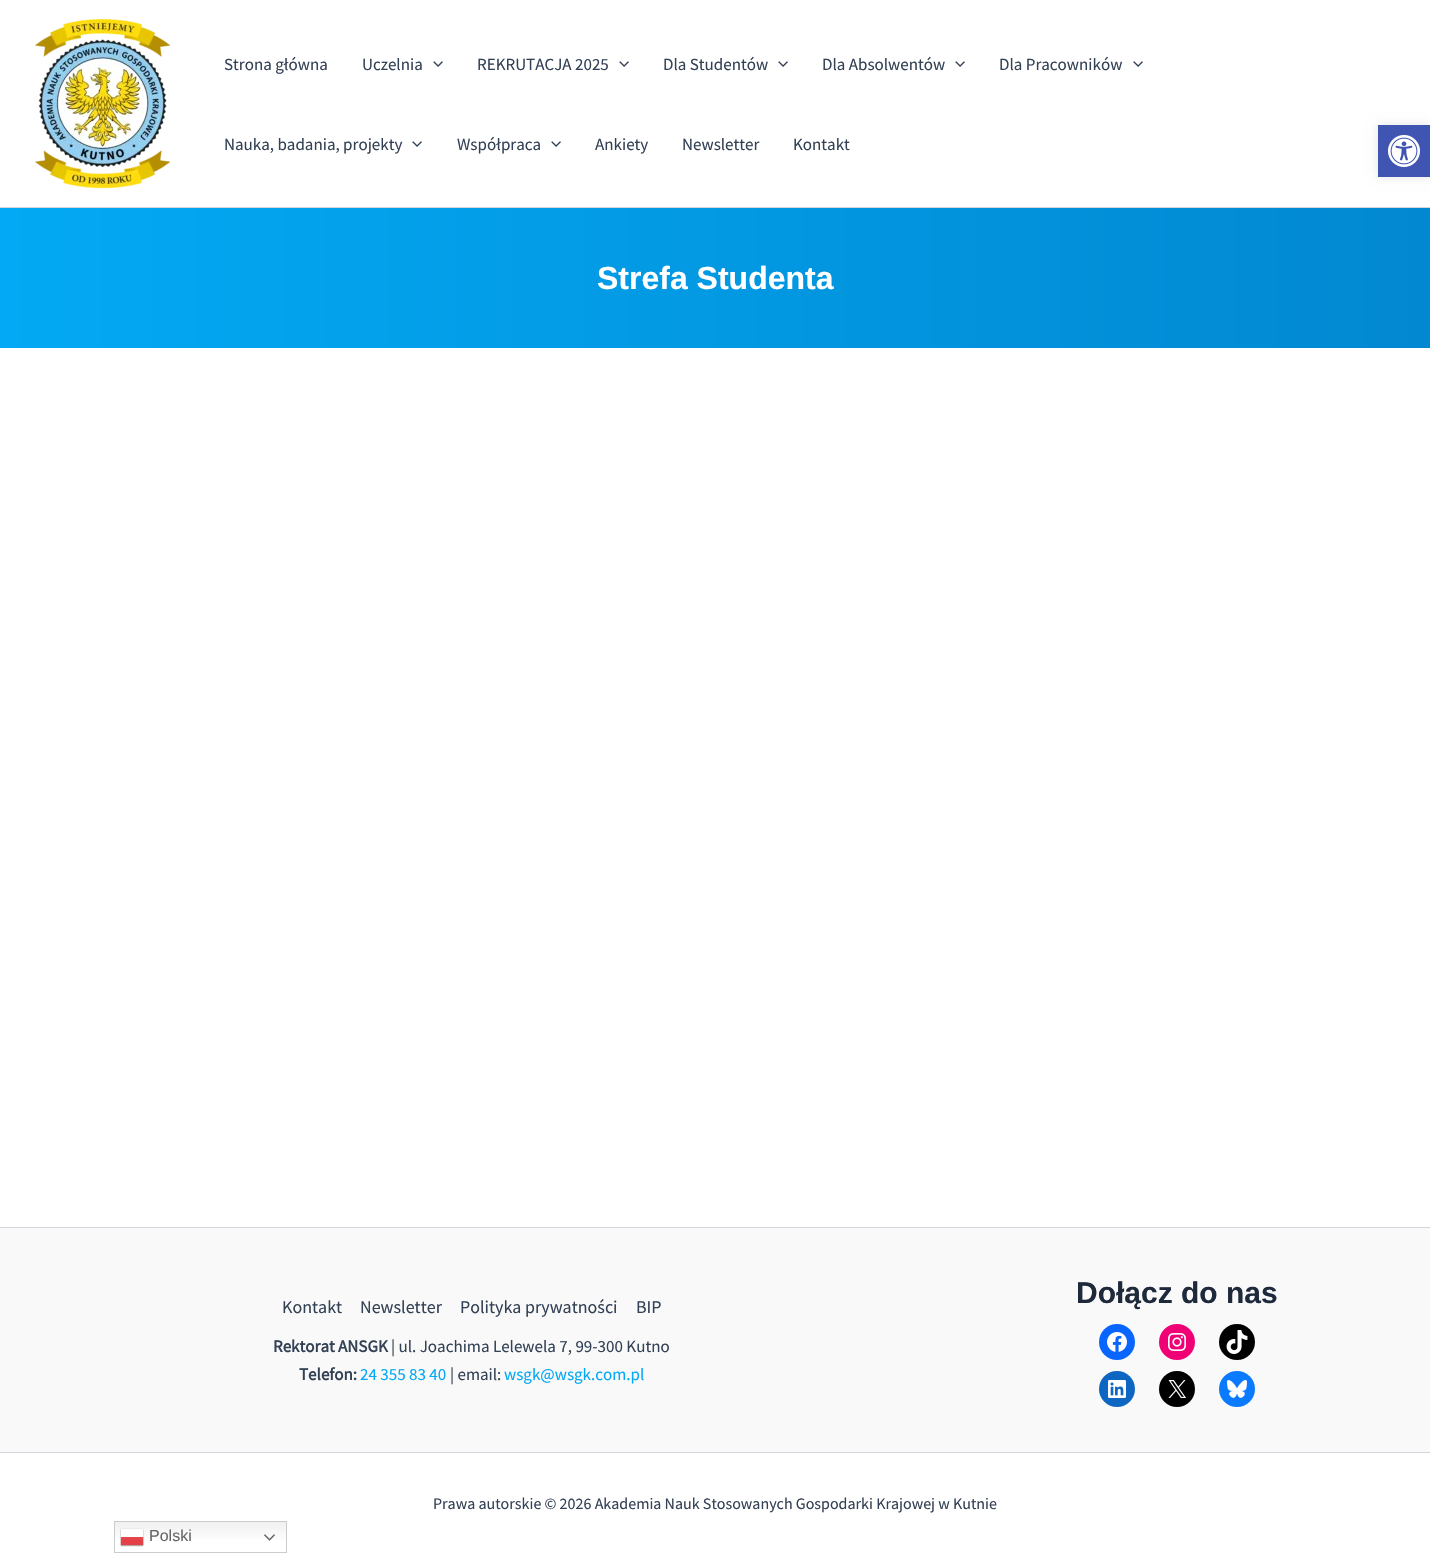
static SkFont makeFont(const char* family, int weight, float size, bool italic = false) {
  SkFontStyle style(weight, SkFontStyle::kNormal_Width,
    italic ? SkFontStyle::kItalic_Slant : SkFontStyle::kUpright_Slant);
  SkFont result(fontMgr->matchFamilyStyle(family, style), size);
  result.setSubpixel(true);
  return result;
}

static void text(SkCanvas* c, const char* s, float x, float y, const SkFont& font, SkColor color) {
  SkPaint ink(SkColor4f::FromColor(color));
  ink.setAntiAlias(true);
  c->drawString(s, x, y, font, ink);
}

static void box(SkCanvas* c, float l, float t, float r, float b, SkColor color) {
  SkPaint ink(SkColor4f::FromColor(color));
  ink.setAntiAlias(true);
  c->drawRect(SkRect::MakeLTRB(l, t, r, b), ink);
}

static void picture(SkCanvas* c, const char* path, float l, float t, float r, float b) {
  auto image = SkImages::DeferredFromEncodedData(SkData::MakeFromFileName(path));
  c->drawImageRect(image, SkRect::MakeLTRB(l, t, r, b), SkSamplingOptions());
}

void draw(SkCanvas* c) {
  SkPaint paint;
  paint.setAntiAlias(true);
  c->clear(0xffffffff);
  box(c, 0, 207, 1430, 208, 0xffd1d5db);
  picture(c, "img_01.png", 35, 18, 170, 189);
  SkFont face1 = makeFont("Source Sans Pro", 400, 17);
  text(c, "Strona główna", 224, 70, face1, 0xff334155);
  text(c, "Uczelnia", 362, 70, face1, 0xff334155);
  picture(c, "img_02.png", 433, 61, 443, 67);
  text(c, "REKRUTACJA 2025", 477, 70, face1, 0xff334155);
  picture(c, "img_02.png", 619, 61, 629, 67);
  text(c, "Dla Studentów", 663, 70, face1, 0xff334155);
  picture(c, "img_02.png", 778, 61, 788, 67);
  text(c, "Dla Absolwentów", 822, 70, face1, 0xff334155);
  picture(c, "img_02.png", 955, 61, 965, 67);
  text(c, "Dla Pracowników", 999, 70, face1, 0xff334155);
  picture(c, "img_02.png", 1133, 61, 1143, 67);
  text(c, "Nauka, badania, projekty", 224, 150, face1, 0xff334155);
  picture(c, "img_02.png", 412, 141, 422, 147);
  text(c, "Współpraca", 457, 150, face1, 0xff334155);
  picture(c, "img_02.png", 551, 141, 561, 147);
  text(c, "Ankiety", 595, 150, face1, 0xff334155);
  text(c, "Newsletter", 682, 150, face1, 0xff334155);
  text(c, "Kontakt", 793, 150, face1, 0xff334155);
  {
    const SkColor colors[] = {0xff03a9f4, 0xff0288d1};
    const float stops[] = {0, 1};
    const SkPoint ends[] = {{0, 278}, {1430, 278}};
    paint.setShader(SkGradientShader::MakeLinear(ends, colors, stops, 2, SkTileMode::kClamp));
    paint.setAlpha(255);
  }
  c->drawRect(SkRect::MakeLTRB(0, 208, 1430, 348), paint);
  SkFont face2 = makeFont("Liberation Sans", 700, 32);
  text(c, "Strefa Studenta", 597, 289, face2, 0xffffffff);
  box(c, 0, 1228, 1430, 1452, 0xfff9f9f9);
  box(c, 0, 1227, 1430, 1228, 0xffd1d5db);
  SkFont face3 = makeFont("Source Sans Pro", 400, 18);
  text(c, "Kontakt", 282, 1313, face3, 0xff334155);
  text(c, "Newsletter", 360, 1313, face3, 0xff334155);
  text(c, "Polityka prywatności", 460, 1313, face3, 0xff334155);
  text(c, "BIP", 636, 1313, face3, 0xff334155);
  SkFont face4 = makeFont("Source Sans Pro", 700, 17);
  text(c, "Rektorat ANSGK", 273, 1352, face4, 0xff334155);
  text(c, "| ul. Joachima Lelewela 7, 99-300 Kutno", 391, 1352, face1, 0xff334155);
  text(c, "Telefon:", 299, 1380, face4, 0xff334155);
  text(c, "24 355 83 40", 360, 1380, face1, 0xff03a9f4);
  text(c, "| email:", 450, 1380, face1, 0xff334155);
  text(c, "wsgk@wsgk.com.pl", 504, 1380, face1, 0xff03a9f4);
  SkFont face5 = makeFont("Liberation Sans", 700, 30);
  text(c, "Dołącz do nas", 1076, 1303, face5, 0xff1e293b);
  paint.setShader(nullptr);
  paint.setColor(0xff0866ff);
  c->drawCircle(1117, 1342, 18, paint);
  picture(c, "img_03.png", 1107, 1332, 1127, 1352);
  paint.setColor(0xfff00075);
  c->drawCircle(1177, 1342, 18, paint);
  picture(c, "img_04.png", 1168, 1333, 1186, 1351);
  paint.setColor(0xff000000);
  c->drawCircle(1237, 1342, 18, paint);
  picture(c, "img_05.png", 1226, 1330, 1248, 1354);
  paint.setColor(0xff0d66c2);
  c->drawCircle(1117, 1389, 18, paint);
  picture(c, "img_06.png", 1108, 1380, 1126, 1398);
  paint.setColor(0xff000000);
  c->drawCircle(1177, 1389, 18, paint);
  picture(c, "img_07.png", 1168, 1380, 1186, 1398);
  paint.setColor(0xff0a7aff);
  c->drawCircle(1237, 1389, 18, paint);
  picture(c, "img_08.png", 1227, 1380, 1247, 1398);
  box(c, 0, 1452, 1430, 1453, 0xffd1d5db);
  SkFont face6 = makeFont("Source Sans Pro", 400, 16);
  text(c, "Prawa autorskie © 2026 Akademia Nauk Stosowanych Gospodarki Krajowej w Kutnie", 433, 1509, face6, 0xff334155);
  paint.setColor(0x1a000000);
  paint.setMaskFilter(SkMaskFilter::MakeBlur(kNormal_SkBlurStyle, 5));
  c->drawRect(SkRect::MakeLTRB(1378, 125, 1430, 177), paint);
  paint.setMaskFilter(nullptr);
  box(c, 1378, 125, 1430, 177, 0xff4054b2);
  picture(c, "img_09.png", 1388, 135, 1420, 167);
  {
    const SkColor colors[] = {0xffefefef, 0xffffffff};
    const float stops[] = {0, 0.7f};
    const SkPoint ends[] = {{201, 1521}, {201, 1553}};
    paint.setShader(SkGradientShader::MakeLinear(ends, colors, stops, 2, SkTileMode::kClamp));
    paint.setAlpha(255);
  }
  c->drawRect(SkRect::MakeLTRB(115, 1522, 286, 1540), paint);
  paint.setStyle(SkPaint::kStroke_Style);
  paint.setStrokeWidth(1);
  paint.setShader(nullptr);
  paint.setColor(0xffcccccc);
  c->drawRect(SkRect::MakeLTRB(114.5f, 1521.5f, 286.5f, 1552.5f), paint);
  picture(c, "img_10.png", 120, 1528, 144, 1547);
  SkFont face7 = makeFont("Liberation Sans", 400, 16);
  text(c, "Polski", 149, 1541, face7, 0xff666666);
  picture(c, "img_11.png", 264, 1534, 275, 1541);
}
